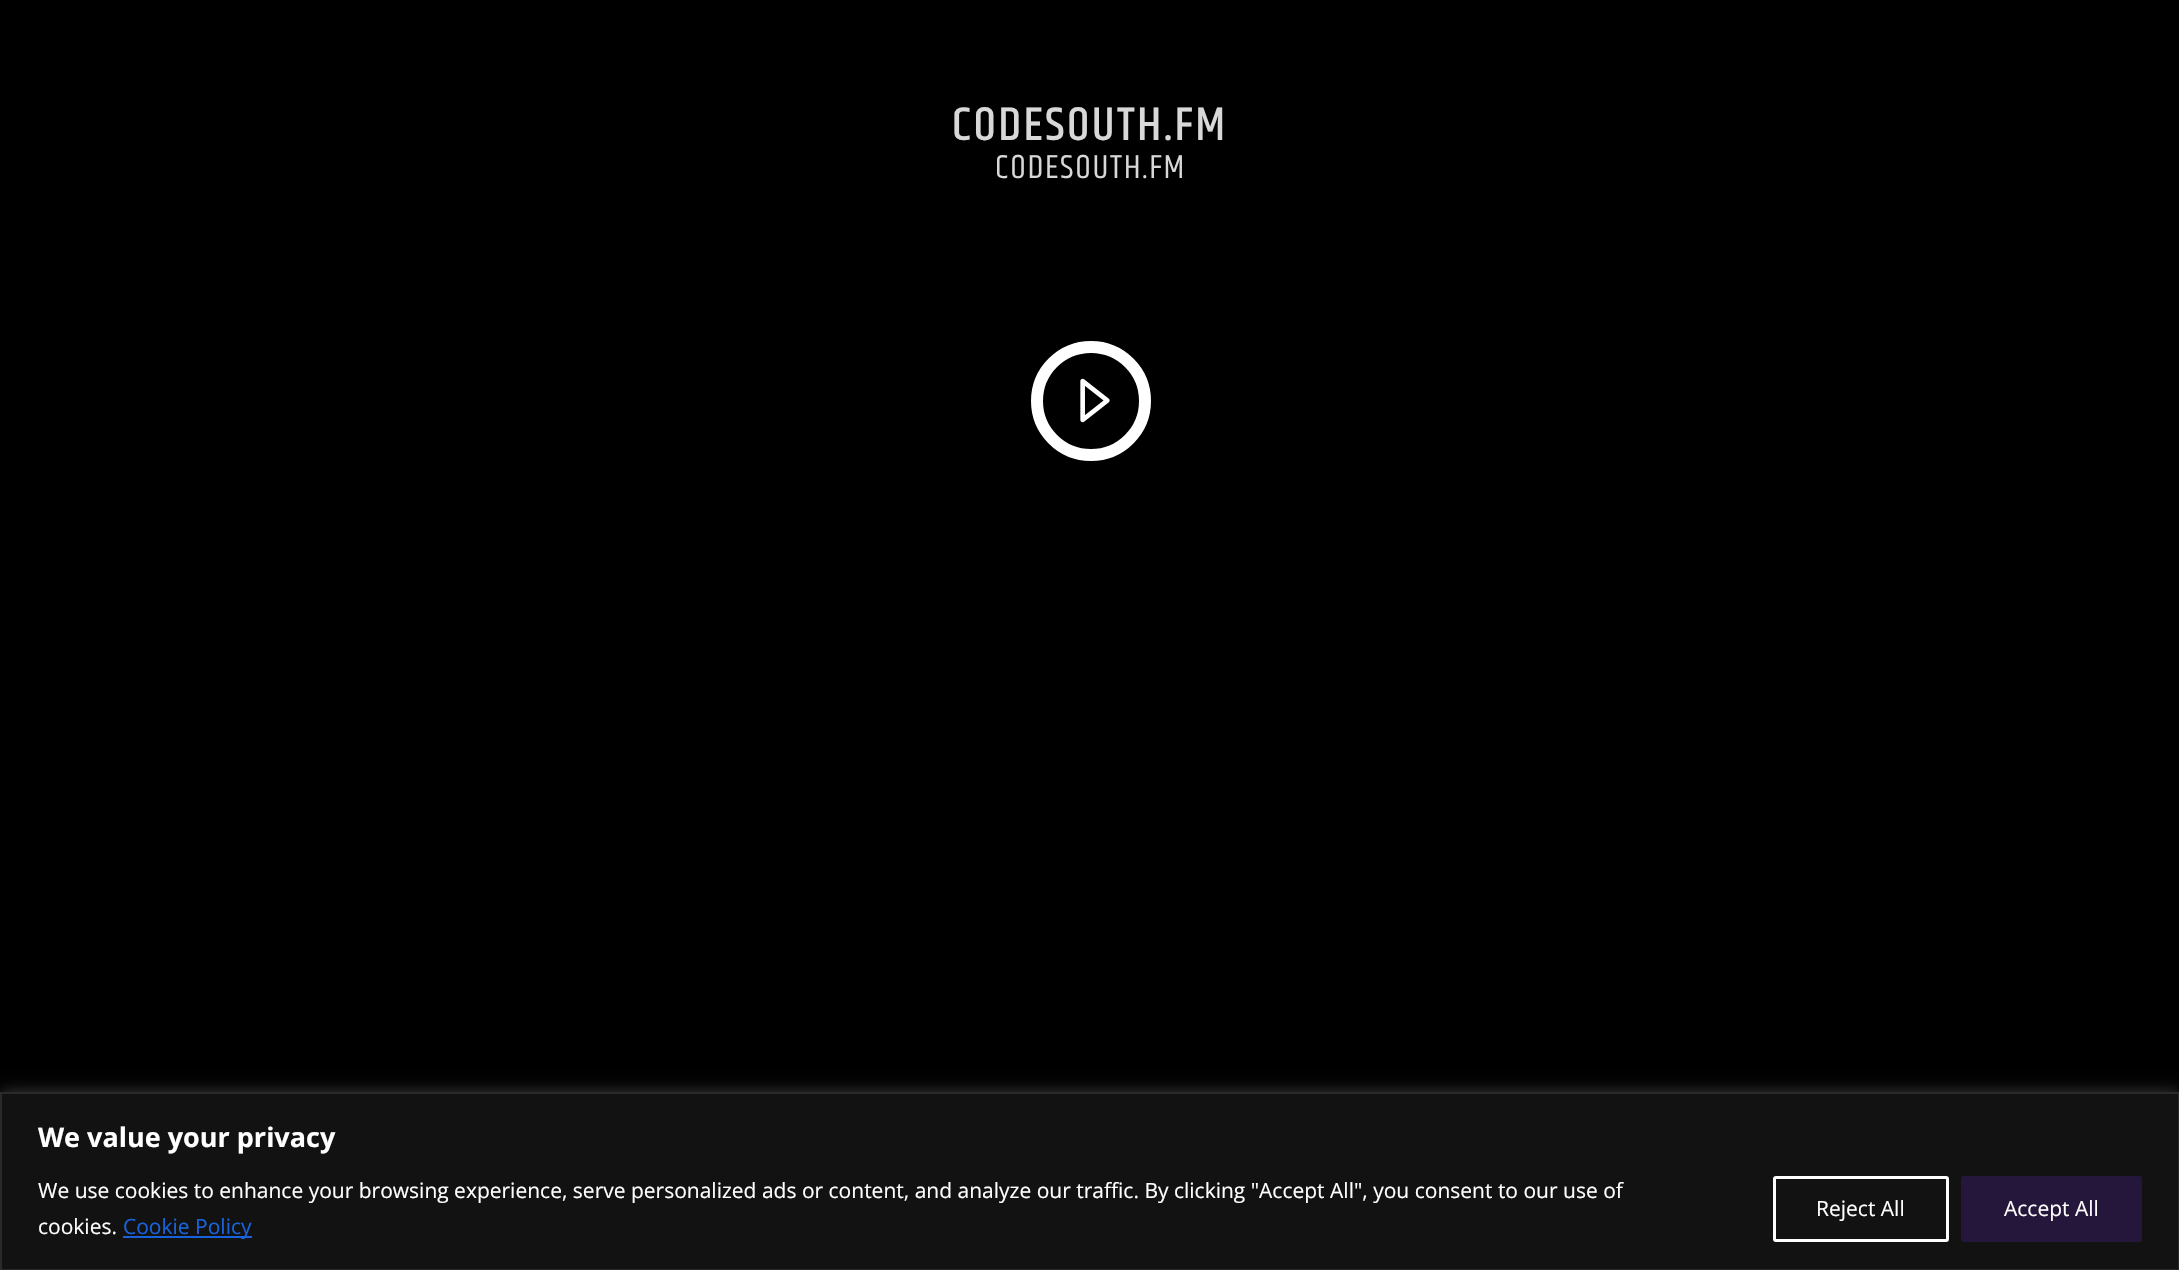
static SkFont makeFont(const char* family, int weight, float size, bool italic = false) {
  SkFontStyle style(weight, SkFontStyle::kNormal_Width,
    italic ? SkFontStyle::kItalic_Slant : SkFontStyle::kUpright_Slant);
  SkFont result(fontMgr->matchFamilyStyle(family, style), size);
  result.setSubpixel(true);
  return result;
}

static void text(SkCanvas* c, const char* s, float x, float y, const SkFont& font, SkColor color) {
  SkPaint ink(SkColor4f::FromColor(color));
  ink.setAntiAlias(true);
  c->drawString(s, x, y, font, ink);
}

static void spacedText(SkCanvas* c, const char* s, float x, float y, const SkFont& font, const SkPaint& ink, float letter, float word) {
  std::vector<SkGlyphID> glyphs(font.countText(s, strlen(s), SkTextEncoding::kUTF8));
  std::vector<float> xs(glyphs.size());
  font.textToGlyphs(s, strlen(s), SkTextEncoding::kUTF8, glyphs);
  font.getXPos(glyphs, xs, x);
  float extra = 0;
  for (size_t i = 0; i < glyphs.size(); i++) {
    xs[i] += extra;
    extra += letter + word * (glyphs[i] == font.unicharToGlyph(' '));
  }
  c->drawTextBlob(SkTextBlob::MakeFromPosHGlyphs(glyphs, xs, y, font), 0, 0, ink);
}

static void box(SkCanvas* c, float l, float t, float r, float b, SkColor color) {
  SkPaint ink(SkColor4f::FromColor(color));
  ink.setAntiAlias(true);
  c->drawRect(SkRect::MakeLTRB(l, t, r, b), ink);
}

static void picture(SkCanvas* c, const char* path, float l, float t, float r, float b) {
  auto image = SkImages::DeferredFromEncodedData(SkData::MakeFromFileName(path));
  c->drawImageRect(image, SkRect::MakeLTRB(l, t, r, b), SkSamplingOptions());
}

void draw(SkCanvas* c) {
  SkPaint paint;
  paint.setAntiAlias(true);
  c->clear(0xff000000);
  SkFont face1 = makeFont("Khand", 500, 48);
  paint.setColor(0xffd8d8d8);
  spacedText(c, "CODESOUTH.FM", 952, 140, face1, paint, 2.4f, 0);
  SkFont face2 = makeFont("Khand", 400, 34);
  spacedText(c, "CODESOUTH.FM", 995, 178, face2, paint, 1.75f, 0);
  paint.setStyle(SkPaint::kStroke_Style);
  paint.setStrokeWidth(12);
  paint.setColor(0xffffffff);
  c->drawCircle(1091, 401, 54, paint);
  picture(c, "img_01.png", 1080, 378, 1110, 423);
  paint.setStyle(SkPaint::kFill_Style);
  paint.setColor(0x4dacabab);
  paint.setMaskFilter(SkMaskFilter::MakeBlur(kNormal_SkBlurStyle, 7.5f));
  c->drawRect(SkRect::MakeLTRB(0, 1091, 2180, 1269), paint);
  paint.setMaskFilter(nullptr);
  paint.setColor(0xff121212);
  c->drawRect(SkRect::MakeLTRB(1, 1093, 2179, 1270), paint);
  paint.setStyle(SkPaint::kStroke_Style);
  paint.setStrokeWidth(2);
  paint.setColor(0xff2a2a2a);
  c->drawRect(SkRect::MakeLTRB(1, 1093, 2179, 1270), paint);
  SkFont face3 = makeFont("Open Sans", 700, 27);
  text(c, "We value your privacy", 38, 1147, face3, 0xffffffff);
  SkFont face4 = makeFont("Open Sans", 400, 21);
  text(c, "We use cookies to enhance your browsing experience, serve personalized ads or content, and analyze our traffic. By clicking \"Accept All\", you consent to our use of", 38, 1198, face4, 0xffffffff);
  text(c, "cookies.", 38, 1234, face4, 0xffffffff);
  box(c, 123, 1236, 252, 1238, 0xff1863dc);
  text(c, "Cookie Policy", 123, 1234, face4, 0xff1863dc);
  paint.setStrokeWidth(3);
  paint.setColor(0xffffffff);
  c->drawRoundRect(SkRect::MakeLTRB(1774.5f, 1177.5f, 1947.5f, 1240.5f), 1.5f, 1.5f, paint);
  text(c, "Reject All", 1816, 1216, face4, 0xffffffff);
  paint.setStyle(SkPaint::kFill_Style);
  paint.setColor(0xff25173c);
  c->drawRoundRect(SkRect::MakeLTRB(1962.5f, 1177.5f, 2140.5f, 1240.5f), 1.5f, 1.5f, paint);
  paint.setStyle(SkPaint::kStroke_Style);
  c->drawRoundRect(SkRect::MakeLTRB(1962.5f, 1177.5f, 2140.5f, 1240.5f), 1.5f, 1.5f, paint);
  text(c, "Accept All", 2004, 1216, face4, 0xffffffff);
}
